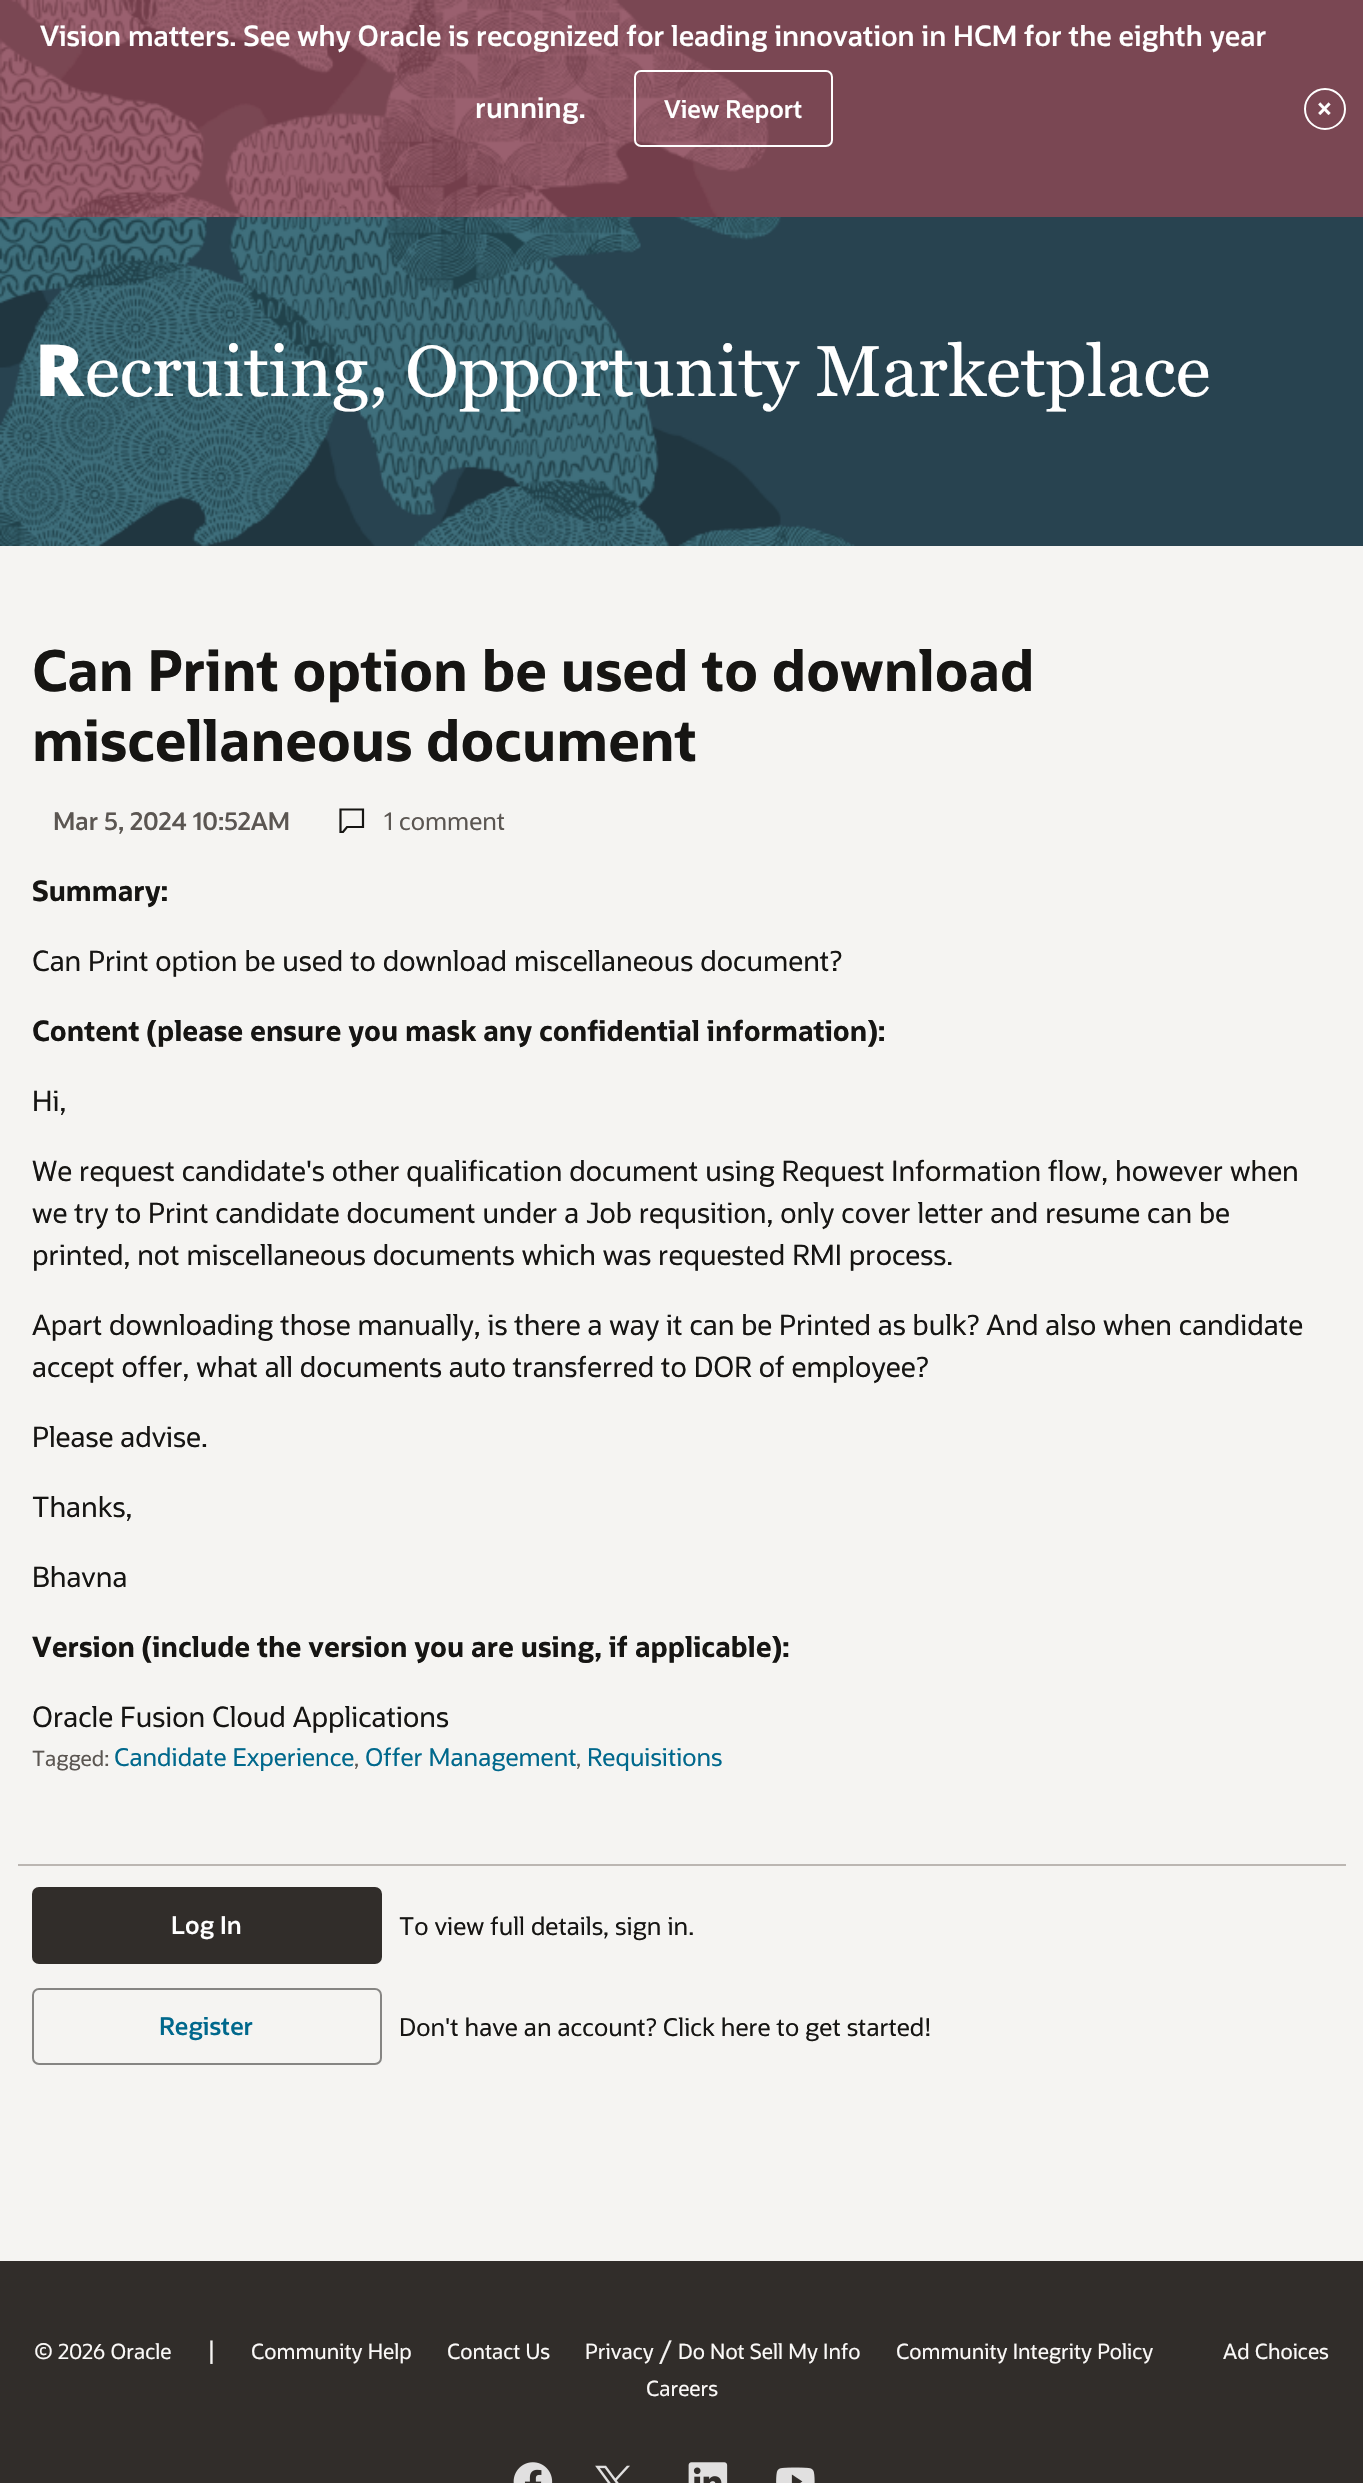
static SkFont makeFont(const char* family, int weight, float size, bool italic = false) {
  SkFontStyle style(weight, SkFontStyle::kNormal_Width,
    italic ? SkFontStyle::kItalic_Slant : SkFontStyle::kUpright_Slant);
  SkFont result(fontMgr->matchFamilyStyle(family, style), size);
  result.setSubpixel(true);
  return result;
}

static void text(SkCanvas* c, const char* s, float x, float y, const SkFont& font, SkColor color) {
  SkPaint ink(SkColor4f::FromColor(color));
  ink.setAntiAlias(true);
  c->drawString(s, x, y, font, ink);
}

static void box(SkCanvas* c, float l, float t, float r, float b, SkColor color) {
  SkPaint ink(SkColor4f::FromColor(color));
  ink.setAntiAlias(true);
  c->drawRect(SkRect::MakeLTRB(l, t, r, b), ink);
}

static void picture(SkCanvas* c, const char* path, float l, float t, float r, float b) {
  auto image = SkImages::DeferredFromEncodedData(SkData::MakeFromFileName(path));
  c->drawImageRect(image, SkRect::MakeLTRB(l, t, r, b), SkSamplingOptions());
}

void draw(SkCanvas* c) {
  SkPaint paint;
  paint.setAntiAlias(true);
  c->clear(0xfff5f4f2);
  box(c, 769, 0, 1363, 217, 0xff7a4753);
  picture(c, "img_01.png", 0, 0, 769, 217);
  SkFont face1 = makeFont("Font", 600, 28);
  text(c, "Vision matters. See why Oracle is recognized for leading innovation in HCM for the eighth year", 40, 46, face1, 0xffffffff);
  text(c, "running.", 475, 118, face1, 0xffffffff);
  paint.setStyle(SkPaint::kStroke_Style);
  paint.setStrokeWidth(2);
  paint.setColor(0xffffffff);
  c->drawRoundRect(SkRect::MakeLTRB(635, 71, 832, 146), 6, 6, paint);
  SkFont face2 = makeFont("Font", 600, 24.5f);
  text(c, "View Report", 664, 118, face2, 0xffffffff);
  c->drawCircle(1325, 109, 20, paint);
  text(c, "×", 1316, 119, face1, 0xffffffff);
  box(c, 855, 217, 1363, 546, 0xff284350);
  picture(c, "img_02.png", 0, 217, 855, 546);
  SkFont face3 = makeFont("Noto Sans", 900, 71.75f);
  text(c, "R", 35, 396, face3, 0xffffffff);
  SkFont face4 = makeFont("Georgia", 400, 71.75f);
  text(c, "ecruiting, Opportunity Marketplace", 85, 396, face4, 0xffffffff);
  SkFont face5 = makeFont("Font", 700, 56);
  text(c, "Can Print option be used to download", 32, 691, face5, 0xff161513);
  text(c, "miscellaneous document", 32, 761, face5, 0xff161513);
  text(c, "Mar 5, 2024 10:52AM", 53, 830, face2, 0xff5b5652);
  paint.setStrokeWidth(2.2f);
  paint.setColor(0xff161513);
  c->drawPath(SkPathBuilder().moveTo(363, 809.5f).lineTo(340.5f, 809.5f).lineTo(340.5f, 832).lineTo(343, 832).lineTo(347, 827).lineTo(363, 827).close().detach(), paint);
  SkFont face6 = makeFont("Font", 400, 24.5f);
  text(c, "1 comment", 384, 830, face6, 0xff5b5652);
  SkFont face7 = makeFont("Font", 700, 28);
  text(c, "Summary:", 32, 901, face7, 0xff161513);
  SkFont face8 = makeFont("Font", 400, 28);
  text(c, "Can Print option be used to download miscellaneous document?", 32, 971, face8, 0xff161513);
  text(c, "Content (please ensure you mask any confidential information):", 32, 1041, face7, 0xff161513);
  text(c, "Hi,", 32, 1111, face8, 0xff161513);
  text(c, "We request candidate's other qualification document using Request Information flow, however when", 32, 1181, face8, 0xff161513);
  text(c, "we try to Print candidate document under a Job requsition, only cover letter and resume can be", 32, 1223, face8, 0xff161513);
  text(c, "printed, not miscellaneous documents which was requested RMI process.", 32, 1265, face8, 0xff161513);
  text(c, "Apart downloading those manually, is there a way it can be Printed as bulk? And also when candidate", 32, 1335, face8, 0xff161513);
  text(c, "accept offer, what all documents auto transferred to DOR of employee?", 32, 1377, face8, 0xff161513);
  text(c, "Please advise.", 32, 1447, face8, 0xff161513);
  text(c, "Thanks,", 32, 1517, face8, 0xff161513);
  text(c, "Bhavna", 32, 1587, face8, 0xff161513);
  text(c, "Version (include the version you are using, if applicable):", 32, 1657, face7, 0xff161513);
  text(c, "Oracle Fusion Cloud Applications", 32, 1727, face8, 0xff161513);
  SkFont face9 = makeFont("Font", 400, 21);
  text(c, "Tagged:", 32, 1766, face9, 0xff5b5652);
  text(c, "Candidate Experience", 114, 1766, face6, 0xff00688c);
  text(c, ",", 354, 1766, face9, 0xff5b5652);
  text(c, "Offer Management", 365, 1766, face6, 0xff00688c);
  text(c, ",", 576, 1766, face9, 0xff5b5652);
  text(c, "Requisitions", 587, 1766, face6, 0xff00688c);
  box(c, 18, 1864, 1346, 1866, 0xffbbb6b2);
  paint.setStyle(SkPaint::kFill_Style);
  paint.setColor(0xff312d2a);
  c->drawRoundRect(SkRect::MakeLTRB(33, 1888, 381, 1963), 6, 6, paint);
  paint.setStyle(SkPaint::kStroke_Style);
  paint.setStrokeWidth(2);
  c->drawRoundRect(SkRect::MakeLTRB(33, 1888, 381, 1963), 6, 6, paint);
  text(c, "Log In", 171, 1934, face2, 0xffffffff);
  text(c, "To view full details, sign in.", 399, 1935, face6, 0xff161513);
  paint.setColor(0xff868583);
  c->drawRoundRect(SkRect::MakeLTRB(33, 1989, 381, 2064), 6, 6, paint);
  text(c, "Register", 159, 2035, face2, 0xff00688c);
  text(c, "Don't have an account? Click here to get started!", 399, 2036, face6, 0xff161513);
  box(c, 0, 2261, 1363, 2483, 0xff312d2a);
  text(c, "© 2026 Oracle", 34, 2359, face9, 0xfffbf9f8);
  text(c, "|", 207, 2359, face6, 0xfff5f4f2);
  text(c, "Community Help", 251, 2359, face9, 0xfffbf9f8);
  text(c, "Contact Us", 447, 2359, face9, 0xfffbf9f8);
  text(c, "Privacy", 585, 2359, face9, 0xfffbf9f8);
  text(c, "/", 659, 2359, face6, 0xfff5f4f2);
  text(c, "Do Not Sell My Info", 678, 2359, face9, 0xfffbf9f8);
  text(c, "Community Integrity Policy", 896, 2359, face9, 0xfffbf9f8);
  text(c, "Ad Choices", 1223, 2359, face9, 0xfffbf9f8);
  text(c, "Careers", 646, 2396, face9, 0xfffbf9f8);
  picture(c, "img_03.png", 513, 2462, 553, 2483);
  picture(c, "img_04.png", 595, 2465, 630, 2483);
  picture(c, "img_05.png", 688, 2462, 728, 2483);
  picture(c, "img_06.png", 776, 2467, 815, 2483);
}
